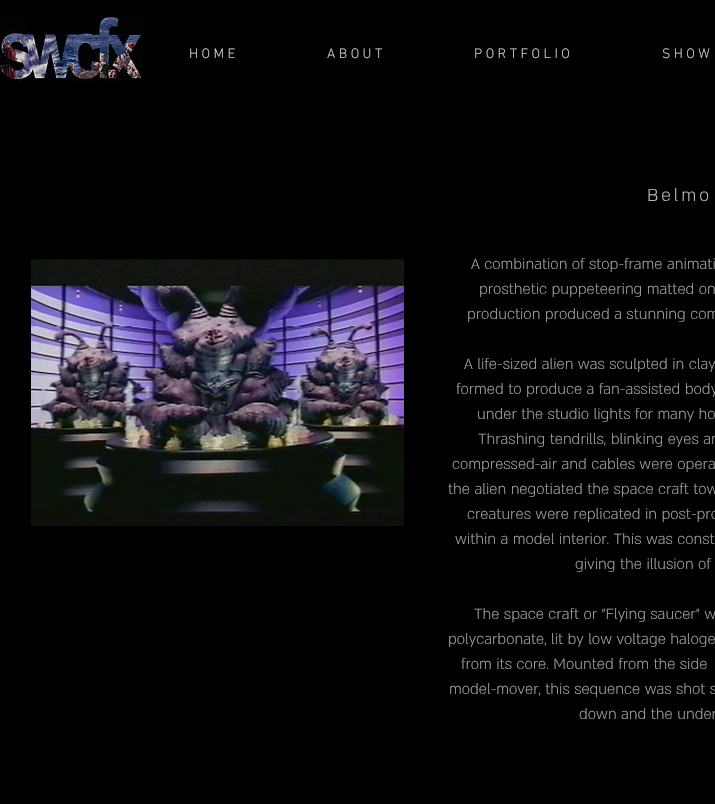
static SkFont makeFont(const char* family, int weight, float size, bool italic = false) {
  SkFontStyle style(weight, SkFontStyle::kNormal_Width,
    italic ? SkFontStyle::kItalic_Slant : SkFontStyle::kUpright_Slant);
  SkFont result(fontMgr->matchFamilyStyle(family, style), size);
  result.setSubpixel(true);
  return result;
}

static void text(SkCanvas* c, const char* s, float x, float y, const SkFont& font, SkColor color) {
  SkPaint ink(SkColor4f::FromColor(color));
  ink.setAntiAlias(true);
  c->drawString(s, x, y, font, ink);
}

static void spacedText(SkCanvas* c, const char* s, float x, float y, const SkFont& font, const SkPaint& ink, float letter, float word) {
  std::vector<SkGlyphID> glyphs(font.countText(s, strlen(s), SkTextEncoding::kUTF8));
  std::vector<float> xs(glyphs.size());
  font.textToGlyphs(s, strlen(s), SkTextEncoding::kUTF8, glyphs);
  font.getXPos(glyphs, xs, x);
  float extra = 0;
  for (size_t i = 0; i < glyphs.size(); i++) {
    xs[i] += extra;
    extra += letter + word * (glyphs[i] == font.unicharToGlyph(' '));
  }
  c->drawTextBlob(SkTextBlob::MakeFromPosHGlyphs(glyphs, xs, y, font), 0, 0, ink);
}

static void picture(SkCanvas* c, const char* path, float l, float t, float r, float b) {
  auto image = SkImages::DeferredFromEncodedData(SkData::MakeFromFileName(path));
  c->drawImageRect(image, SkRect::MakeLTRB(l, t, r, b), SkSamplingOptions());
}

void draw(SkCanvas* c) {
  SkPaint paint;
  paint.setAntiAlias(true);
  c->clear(0xff000000);
  picture(c, "img_01.png", 0, 17, 143, 82);
  SkFont face1 = makeFont("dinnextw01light", 300, 14);
  text(c, "H O M E", 189, 58, face1, 0xffcccccc);
  text(c, "A B O U T", 327, 58, face1, 0xffcccccc);
  text(c, "P O R T F O L I O", 474, 58, face1, 0xffcccccc);
  text(c, "S H O W", 662, 58, face1, 0xffcccccc);
  picture(c, "img_02.png", 31, 259, 404, 526);
  SkFont face2 = makeFont("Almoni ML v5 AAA", 300, 20);
  paint.setColor(0xffbab8b8);
  spacedText(c, "Belmo", 647, 201, face2, paint, 3, 0);
  SkFont face3 = makeFont("Almoni ML v5 AAA", 300, 17);
  text(c, "A combination of stop-frame animati", 471, 269, face3, 0xffa0a09f);
  text(c, "prosthetic puppeteering matted on", 479, 294, face3, 0xffa0a09f);
  text(c, "production produced a stunning com", 467, 319, face3, 0xffa0a09f);
  text(c, "A life-sized alien was sculpted in clay", 464, 369, face3, 0xffa0a09f);
  text(c, "formed to produce a fan-assisted body", 456, 394, face3, 0xffa0a09f);
  text(c, "under the studio lights for many ho", 477, 419, face3, 0xffa0a09f);
  text(c, "Thrashing tendrills, blinking eyes an", 478, 444, face3, 0xffa0a09f);
  text(c, "compressed-air and cables were opera", 452, 469, face3, 0xffa0a09f);
  text(c, "the alien negotiated the space craft tow", 448, 494, face3, 0xffa0a09f);
  text(c, "creatures were replicated in post-pro", 467, 519, face3, 0xffa0a09f);
  text(c, "within a model interior. This was const", 455, 544, face3, 0xffa0a09f);
  text(c, "giving the illusion of", 575, 569, face3, 0xffa0a09f);
  text(c, "The space craft or \"Flying saucer\" w", 474, 619, face3, 0xffa0a09f);
  text(c, "polycarbonate, lit by low voltage haloge", 448, 644, face3, 0xffa0a09f);
  text(c, "from its core. Mounted from the side", 461, 669, face3, 0xffa0a09f);
  text(c, "model-mover, this sequence was shot s", 449, 694, face3, 0xffa0a09f);
  text(c, "down and the under", 579, 719, face3, 0xffa0a09f);
}
